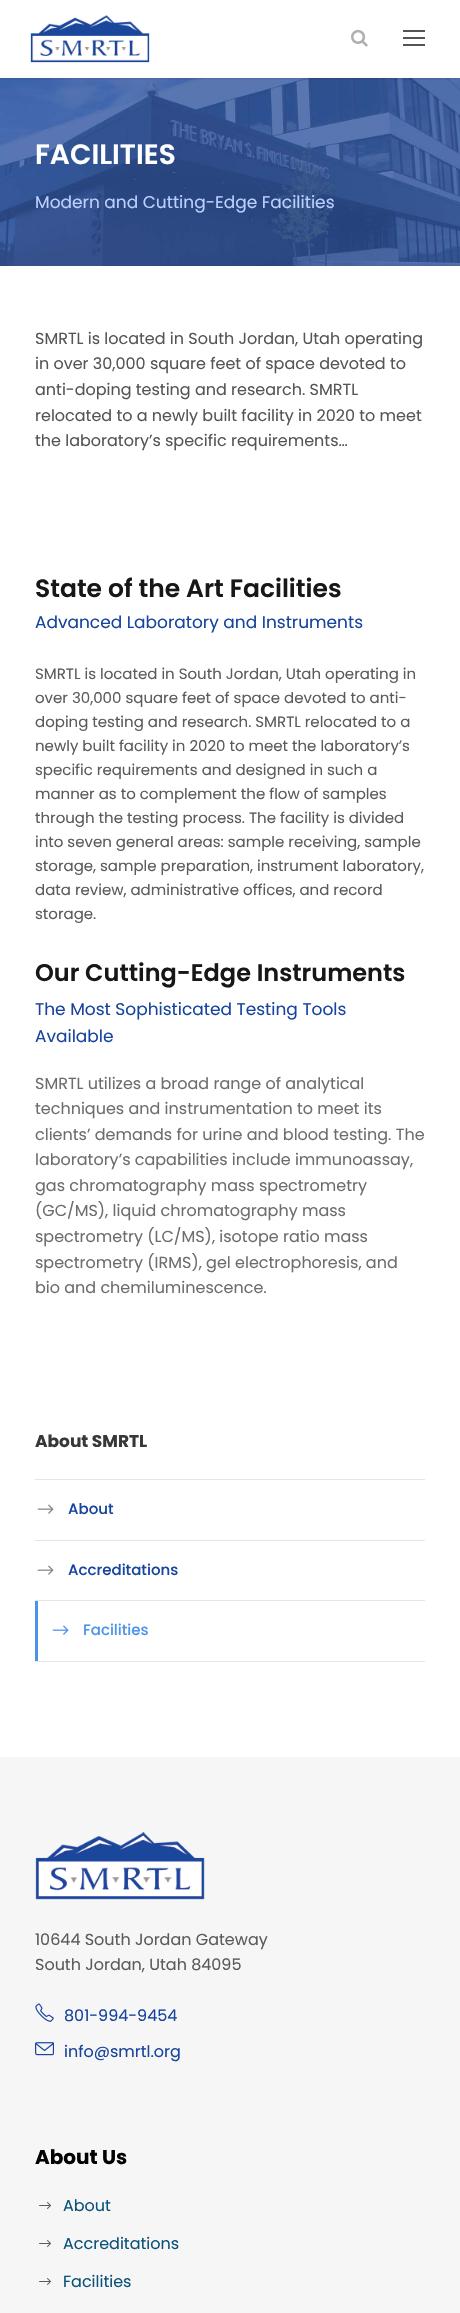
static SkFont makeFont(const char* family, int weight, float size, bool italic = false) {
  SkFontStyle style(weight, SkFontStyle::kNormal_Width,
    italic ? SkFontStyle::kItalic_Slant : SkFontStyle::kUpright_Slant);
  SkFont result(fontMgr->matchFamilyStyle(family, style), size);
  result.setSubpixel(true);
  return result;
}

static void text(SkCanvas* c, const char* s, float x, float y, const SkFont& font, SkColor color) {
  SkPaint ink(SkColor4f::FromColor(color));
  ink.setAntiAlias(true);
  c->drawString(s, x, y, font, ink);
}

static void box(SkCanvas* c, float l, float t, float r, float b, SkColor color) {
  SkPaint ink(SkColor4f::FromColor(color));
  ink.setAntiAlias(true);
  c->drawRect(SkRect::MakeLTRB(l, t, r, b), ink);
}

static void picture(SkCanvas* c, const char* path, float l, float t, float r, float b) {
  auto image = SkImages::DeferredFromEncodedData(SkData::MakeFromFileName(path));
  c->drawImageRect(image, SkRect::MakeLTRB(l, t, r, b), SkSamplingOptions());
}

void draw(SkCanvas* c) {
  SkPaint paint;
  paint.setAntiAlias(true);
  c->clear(0xffffffff);
  picture(c, "img_03.png", 0, 78, 460, 266);
  c->save();
  c->clipRect(SkRect::MakeLTRB(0, 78, 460, 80));
  paint.setColor(0x1a000000);
  paint.setMaskFilter(SkMaskFilter::MakeBlur(kNormal_SkBlurStyle, 1));
  c->drawRect(SkRect::MakeLTRB(0, 1, 460, 79), paint);
  paint.setMaskFilter(nullptr);
  c->restore();
  picture(c, "img_01.png", 30, 15, 150, 63);
  picture(c, "img_02.png", 351, 29, 368, 47);
  box(c, 403, 30, 425, 32, 0xff545454);
  box(c, 403, 37, 425, 39, 0xff545454);
  box(c, 403, 44, 425, 46, 0xff545454);
  SkFont face1 = makeFont("Poppins", 600, 28);
  text(c, "FACILITIES", 35, 164, face1, 0xffffffff);
  SkFont face2 = makeFont("Poppins", 400, 17);
  text(c, "Modern and Cutting-Edge Facilities", 35, 208, face2, 0xffbbd1ff);
  SkFont face3 = makeFont("Poppins", 400, 16);
  text(c, "SMRTL is located in South Jordan, Utah operating", 35, 344, face3, 0xff555555);
  text(c, "in over 30,000 square feet of space devoted to", 35, 369, face3, 0xff555555);
  text(c, "anti-doping testing and research. SMRTL", 35, 395, face3, 0xff555555);
  text(c, "relocated to a newly built facility in 2020 to meet", 35, 421, face3, 0xff555555);
  text(c, "the laboratory’s specific requirements…", 35, 446, face3, 0xff555555);
  SkFont face4 = makeFont("Poppins", 600, 25);
  text(c, "State of the Art Facilities", 35, 597, face4, 0xff171717);
  text(c, "Advanced Laboratory and Instruments", 35, 628, face2, 0xff17449e);
  SkFont face5 = makeFont("Poppins", 400, 15);
  text(c, "SMRTL is located in South Jordan, Utah operating in", 35, 679, face5, 0xff5b5b5b);
  text(c, "over 30,000 square feet of space devoted to anti-", 35, 703, face5, 0xff5b5b5b);
  text(c, "doping testing and research. SMRTL relocated to a", 35, 727, face5, 0xff5b5b5b);
  text(c, "newly built facility in 2020 to meet the laboratory’s", 35, 751, face5, 0xff5b5b5b);
  text(c, "specific requirements and designed in such a", 35, 775, face5, 0xff5b5b5b);
  text(c, "manner as to complement the flow of samples", 35, 799, face5, 0xff5b5b5b);
  text(c, "through the testing process. The facility is divided", 35, 823, face5, 0xff5b5b5b);
  text(c, "into seven general areas: sample receiving, sample", 35, 847, face5, 0xff5b5b5b);
  text(c, "storage, sample preparation, instrument laboratory,", 35, 871, face5, 0xff5b5b5b);
  text(c, "data review, administrative offices, and record", 35, 895, face5, 0xff5b5b5b);
  text(c, "storage.", 35, 919, face5, 0xff5b5b5b);
  SkFont face6 = makeFont("Poppins", 600, 24);
  text(c, "Our Cutting-Edge Instruments", 35, 981, face6, 0xff171717);
  text(c, "The Most Sophisticated Testing Tools", 35, 1015, face2, 0xff17449e);
  text(c, "Available", 35, 1042, face2, 0xff17449e);
  text(c, "SMRTL utilizes a broad range of analytical", 35, 1089, face3, 0xff6d6d6d);
  text(c, "techniques and instrumentation to meet its", 35, 1114, face3, 0xff6d6d6d);
  text(c, "clients’ demands for urine and blood testing. The", 35, 1140, face3, 0xff6d6d6d);
  text(c, "laboratory’s capabilities include immunoassay,", 35, 1165, face3, 0xff6d6d6d);
  text(c, "gas chromatography mass spectrometry", 35, 1191, face3, 0xff6d6d6d);
  text(c, "(GC/MS), liquid chromatography mass", 35, 1216, face3, 0xff6d6d6d);
  text(c, "spectrometry (LC/MS), isotope ratio mass", 35, 1242, face3, 0xff6d6d6d);
  text(c, "spectrometry (IRMS), gel electrophoresis, and", 35, 1268, face3, 0xff6d6d6d);
  text(c, "bio and chemiluminescence.", 35, 1293, face3, 0xff6d6d6d);
  SkFont face7 = makeFont("Poppins", 700, 17);
  text(c, "About SMRTL", 35, 1447, face7, 0xff383838);
  box(c, 35, 1479, 425, 1480, 0xffe6e6e6);
  box(c, 35, 1540, 425, 1541, 0xffe6e6e6);
  picture(c, "img_04.png", 37, 1504, 54, 1514);
  SkFont face8 = makeFont("Poppins", 500, 15);
  text(c, "About", 68, 1514, face8, 0xff17449e);
  box(c, 35, 1600, 425, 1601, 0xffe6e6e6);
  picture(c, "img_04.png", 37, 1565, 54, 1575);
  text(c, "Accreditations", 68, 1575, face8, 0xff17449e);
  box(c, 35, 1661, 425, 1662, 0xffe6e6e6);
  box(c, 35, 1601, 38, 1661, 0xff4d93e9);
  picture(c, "img_05.png", 52, 1625, 69, 1635);
  text(c, "Facilities", 83, 1635, face8, 0xff4d93e9);
  box(c, 0, 1757, 460, 2313, 0xfff6f6f6);
  picture(c, "img_06.png", 35, 1832, 205, 1900);
  text(c, "10644 South Jordan Gateway", 35, 1945, face3, 0xff5b5b5b);
  text(c, "South Jordan, Utah 84095", 35, 1970, face3, 0xff5b5b5b);
  picture(c, "img_07.png", 35, 2003, 54, 2022);
  text(c, "801-994-9454", 64, 2021, face3, 0xff17449e);
  picture(c, "img_08.png", 35, 2042, 54, 2056);
  text(c, "info@smrtl.org", 64, 2057, face3, 0xff17449e);
  SkFont face9 = makeFont("Poppins", 700, 20);
  text(c, "About Us", 35, 2164, face9, 0xff020202);
  picture(c, "img_09.png", 39, 2202, 51, 2209);
  text(c, "About", 63, 2211, face3, 0xff0c527a);
  picture(c, "img_09.png", 39, 2240, 51, 2247);
  text(c, "Accreditations", 63, 2249, face3, 0xff0c527a);
  picture(c, "img_09.png", 39, 2278, 51, 2285);
  text(c, "Facilities", 63, 2287, face3, 0xff0c527a);
}
